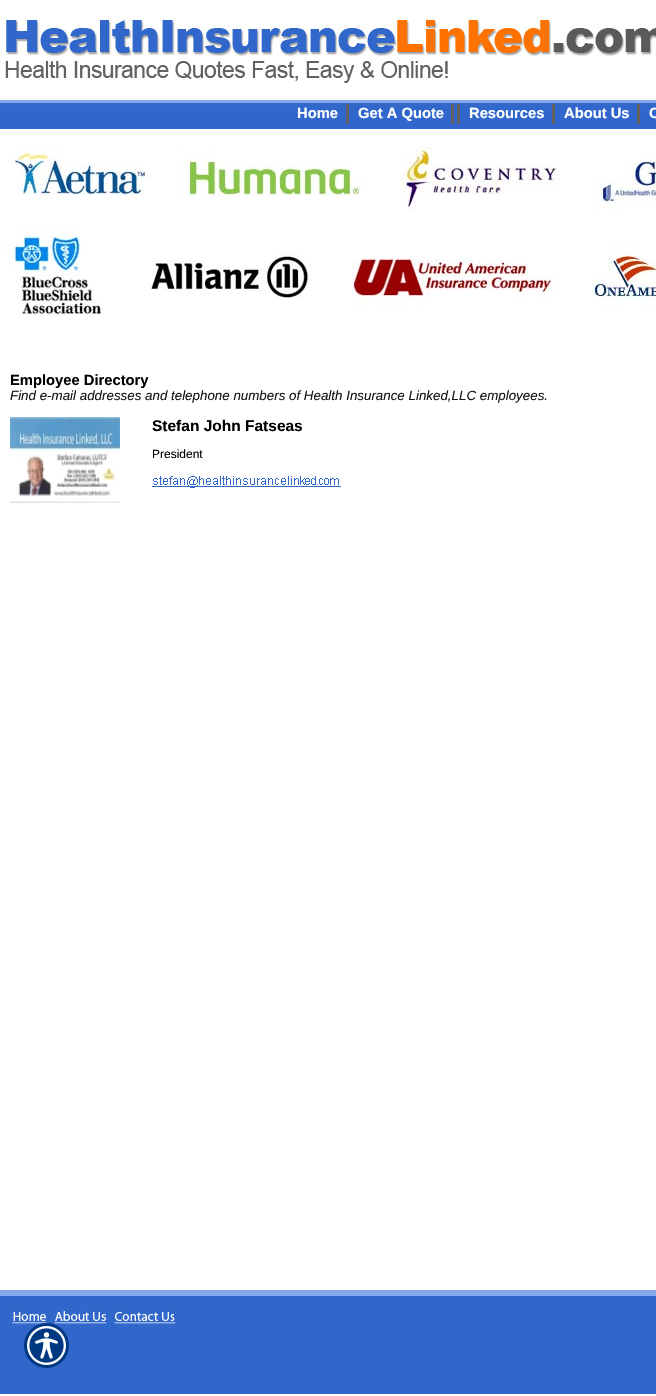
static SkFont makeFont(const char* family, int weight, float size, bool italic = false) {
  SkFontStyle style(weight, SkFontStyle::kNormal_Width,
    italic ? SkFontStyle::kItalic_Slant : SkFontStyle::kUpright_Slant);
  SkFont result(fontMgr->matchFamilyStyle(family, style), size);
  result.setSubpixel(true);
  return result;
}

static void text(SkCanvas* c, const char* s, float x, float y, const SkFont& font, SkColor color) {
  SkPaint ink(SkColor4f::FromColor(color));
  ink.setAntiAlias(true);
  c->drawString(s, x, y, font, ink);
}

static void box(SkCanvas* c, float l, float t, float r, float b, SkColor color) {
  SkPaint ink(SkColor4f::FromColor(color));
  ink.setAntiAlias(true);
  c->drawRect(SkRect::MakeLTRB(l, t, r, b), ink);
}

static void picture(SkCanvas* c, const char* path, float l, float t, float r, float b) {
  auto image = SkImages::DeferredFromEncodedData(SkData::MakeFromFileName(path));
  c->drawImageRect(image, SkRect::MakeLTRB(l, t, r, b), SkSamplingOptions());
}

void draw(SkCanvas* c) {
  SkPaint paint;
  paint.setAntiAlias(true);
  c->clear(0xffffffff);
  picture(c, "img_01.png", 0, 100, 656, 129);
  picture(c, "img_02.png", 0, 16, 656, 83);
  SkFont face1 = makeFont("Liberation Sans", 700, 14.75f);
  text(c, "Home", 297, 118, face1, 0xffffffff);
  box(c, 346, 104, 349, 124, 0xff616161);
  text(c, "Get A Quote", 358, 118, face1, 0xffffffff);
  box(c, 451, 104, 454, 124, 0xff616161);
  box(c, 457, 104, 460, 124, 0xff616161);
  text(c, "Resources", 469, 118, face1, 0xffffffff);
  box(c, 552, 104, 555, 124, 0xff616161);
  text(c, "About Us", 564, 118, face1, 0xffffffff);
  box(c, 637, 104, 640, 124, 0xff616161);
  text(c, "C", 649, 118, face1, 0xffffffff);
  picture(c, "img_03.png", 0, 147, 656, 315);
  text(c, "Employee Directory", 10, 385, face1, 0xff000000);
  SkFont face2 = makeFont("Liberation Sans", 400, 13.35f, true);
  text(c, "Find e-mail addresses and telephone numbers of Health Insurance Linked,LLC employees.", 10, 400, face2, 0xff151515);
  picture(c, "img_04.png", 10, 417, 120, 503);
  SkFont face3 = makeFont("Liberation Sans", 700, 15.5f);
  text(c, "Stefan John Fatseas", 152, 431, face3, 0xff000000);
  SkFont face4 = makeFont("Liberation Sans", 400, 12);
  text(c, "President", 152, 458, face4, 0xff000000);
  picture(c, "img_05.png", 152, 476, 341, 488);
  picture(c, "img_06.png", 0, 1290, 656, 1394);
  picture(c, "img_07.png", 24, 1323, 69, 1368);
}
